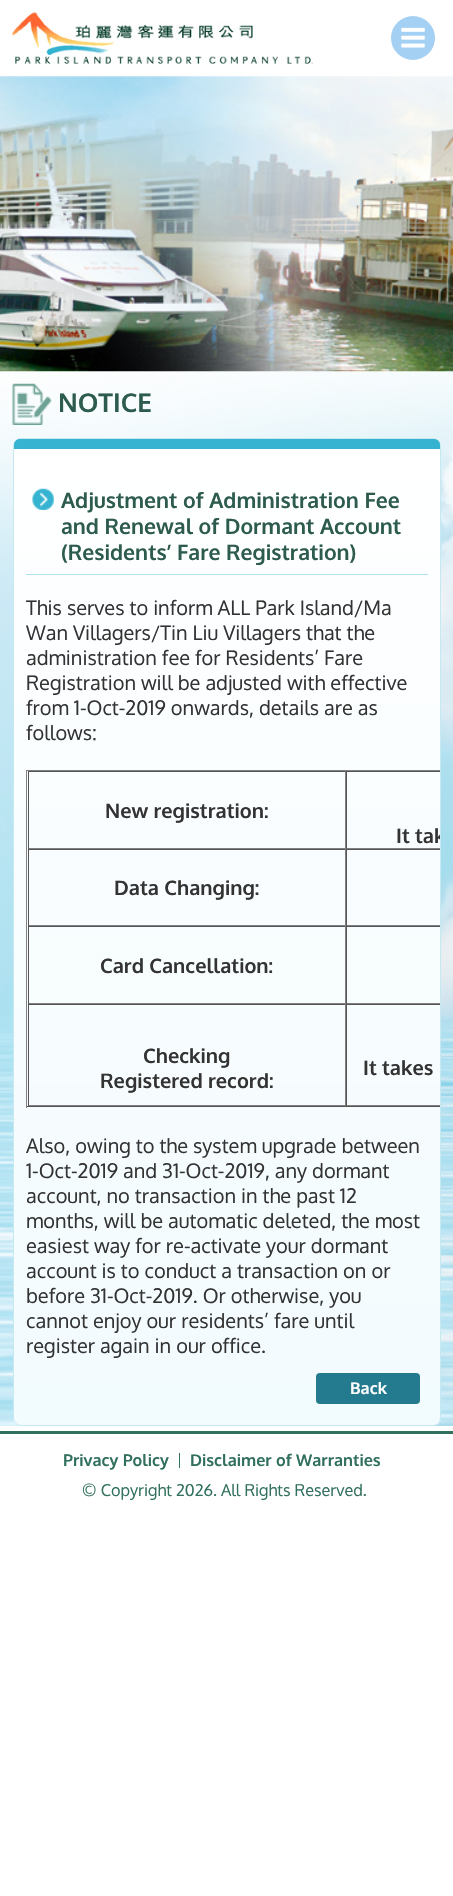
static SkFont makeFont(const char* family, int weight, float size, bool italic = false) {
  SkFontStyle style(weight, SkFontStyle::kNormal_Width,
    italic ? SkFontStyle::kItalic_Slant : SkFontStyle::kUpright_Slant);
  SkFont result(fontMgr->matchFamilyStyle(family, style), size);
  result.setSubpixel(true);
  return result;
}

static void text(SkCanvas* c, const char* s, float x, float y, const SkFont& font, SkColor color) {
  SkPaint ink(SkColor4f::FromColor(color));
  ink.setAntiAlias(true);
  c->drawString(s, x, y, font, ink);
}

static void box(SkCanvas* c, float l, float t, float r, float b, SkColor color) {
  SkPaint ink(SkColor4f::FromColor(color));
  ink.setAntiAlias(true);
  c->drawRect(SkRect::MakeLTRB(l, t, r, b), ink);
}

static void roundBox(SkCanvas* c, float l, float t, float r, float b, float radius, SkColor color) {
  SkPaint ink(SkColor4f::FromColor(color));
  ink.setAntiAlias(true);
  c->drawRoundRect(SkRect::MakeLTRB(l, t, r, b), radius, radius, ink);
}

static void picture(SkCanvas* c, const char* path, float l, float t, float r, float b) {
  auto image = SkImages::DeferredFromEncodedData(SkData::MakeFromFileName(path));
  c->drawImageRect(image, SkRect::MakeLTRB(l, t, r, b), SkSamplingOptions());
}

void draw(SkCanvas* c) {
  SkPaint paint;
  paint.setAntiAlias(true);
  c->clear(0xffffffff);
  picture(c, "img_01.png", 0, 0, 453, 1522);
  picture(c, "img_02.png", 12, 12, 313, 64);
  paint.setColor(0xffa4d0f4);
  c->drawCircle(413, 38, 22, paint);
  picture(c, "img_03.png", 401, 27, 425, 48);
  picture(c, "img_04.png", 0, 76, 453, 372);
  box(c, 0, 1426, 453, 1431, 0xffffffff);
  picture(c, "img_05.png", 12, 383, 52, 425);
  SkFont face1 = makeFont("Oxygen", 700, 26);
  text(c, "NOTICE", 58, 412, face1, 0xff2d5b4e);
  c->save();
  c->clipPath(SkPathBuilder().moveTo(21, 438).lineTo(433, 438).cubicTo(437.5f, 438, 441, 441.5f, 441, 446).lineTo(441, 1418).cubicTo(441, 1422.5f, 437.5f, 1426, 433, 1426).lineTo(21, 1426).cubicTo(16.5f, 1426, 13, 1422.5f, 13, 1418).lineTo(13, 446).cubicTo(13, 441.5f, 16.5f, 438, 21, 438).close().detach(), true);
  {
    const SkColor colors[] = {0xffffffff, 0xfff2fbfe};
    const float stops[] = {0, 1};
    const SkPoint ends[] = {{227, 439}, {227, 1425}};
    paint.setShader(SkGradientShader::MakeLinear(ends, colors, stops, 2, SkTileMode::kClamp));
    paint.setAlpha(255);
  }
  c->drawRect(SkRect::MakeLTRB(13, 439, 441, 1425), paint);
  c->restore();
  paint.setStyle(SkPaint::kStroke_Style);
  paint.setStrokeWidth(1);
  paint.setShader(nullptr);
  paint.setColor(0xffc5e8f1);
  c->drawRoundRect(SkRect::MakeLTRB(13.5f, 438.5f, 440.5f, 1425.5f), 7.5f, 7.5f, paint);
  paint.setStyle(SkPaint::kFill_Style);
  paint.setColor(0xff35b3d1);
  c->drawPath(SkPathBuilder().moveTo(20, 439).lineTo(434, 439).cubicTo(437.5f, 439, 440, 441.5f, 440, 445).lineTo(440, 449).lineTo(14, 449).lineTo(14, 445).cubicTo(14, 441.5f, 16.5f, 439, 20, 439).close().detach(), paint);
  picture(c, "img_06.png", 32, 488, 54, 510);
  box(c, 26, 574, 428, 575, 0xffb2e1f3);
  SkFont face2 = makeFont("Oxygen", 700, 21.25f);
  text(c, "Adjustment of Administration Fee", 61, 508, face2, 0xff2d5b4e);
  text(c, "and Renewal of Dormant Account", 61, 534, face2, 0xff2d5b4e);
  text(c, "(Residents’ Fare Registration)", 61, 560, face2, 0xff2d5b4e);
  SkFont face3 = makeFont("Oxygen", 400, 20);
  text(c, "This serves to inform ALL Park Island/Ma", 26, 615, face3, 0xff333333);
  text(c, "Wan Villagers/Tin Liu Villagers that the", 26, 640, face3, 0xff333333);
  text(c, "administration fee for Residents’ Fare", 26, 665, face3, 0xff333333);
  text(c, "Registration will be adjusted with effective", 26, 690, face3, 0xff333333);
  text(c, "from 1-Oct-2019 onwards, details are as", 26, 715, face3, 0xff333333);
  text(c, "follows:", 26, 740, face3, 0xff333333);
  box(c, 26, 770, 440, 771, 0xff808080);
  box(c, 26, 1106, 440, 1107, 0xff555555);
  box(c, 26, 770, 27, 1108, 0xff808080);
  box(c, 28, 771, 440, 772, 0xff555555);
  box(c, 345, 771, 346, 849, 0xff808080);
  box(c, 28, 848, 440, 849, 0xff808080);
  box(c, 28, 771, 29, 849, 0xff555555);
  SkFont face4 = makeFont("Oxygen", 700, 20);
  text(c, "New registration:", 105, 818, face4, 0xff333333);
  box(c, 346, 771, 347, 849, 0xff555555);
  c->save();
  c->clipPath(SkPathBuilder().moveTo(20, 439).lineTo(434, 439).cubicTo(437.5f, 439, 440, 441.5f, 440, 445).lineTo(440, 1419).cubicTo(440, 1422.5f, 437.5f, 1425, 434, 1425).lineTo(20, 1425).cubicTo(16.5f, 1425, 14, 1422.5f, 14, 1419).lineTo(14, 445).cubicTo(14, 441.5f, 16.5f, 439, 20, 439).close().detach(), true);
  text(c, "It tak", 396, 843, face4, 0xff333333);
  c->restore();
  box(c, 28, 849, 440, 850, 0xff555555);
  box(c, 345, 849, 346, 926, 0xff808080);
  box(c, 28, 925, 440, 926, 0xff808080);
  box(c, 28, 849, 29, 926, 0xff555555);
  text(c, "Data Changing:", 114, 895, face4, 0xff333333);
  box(c, 346, 849, 347, 926, 0xff555555);
  box(c, 28, 926, 440, 927, 0xff555555);
  box(c, 345, 926, 346, 1004, 0xff808080);
  box(c, 28, 1003, 440, 1004, 0xff808080);
  box(c, 28, 926, 29, 1004, 0xff555555);
  text(c, "Card Cancellation:", 100, 973, face4, 0xff333333);
  box(c, 346, 926, 347, 1004, 0xff555555);
  box(c, 28, 1004, 440, 1005, 0xff555555);
  box(c, 345, 1004, 346, 1106, 0xff808080);
  box(c, 28, 1105, 440, 1106, 0xff808080);
  box(c, 28, 1004, 29, 1106, 0xff555555);
  text(c, "Checking", 143, 1063, face4, 0xff333333);
  text(c, "Registered record:", 100, 1088, face4, 0xff333333);
  box(c, 346, 1004, 347, 1106, 0xff555555);
  text(c, "It takes", 363, 1075, face4, 0xff333333);
  text(c, "Also, owing to the system upgrade between", 26, 1153, face3, 0xff333333);
  text(c, "1-Oct-2019 and 31-Oct-2019, any dormant", 26, 1178, face3, 0xff333333);
  text(c, "account, no transaction in the past 12", 26, 1203, face3, 0xff333333);
  text(c, "months, will be automatic deleted, the most", 26, 1228, face3, 0xff333333);
  text(c, "easiest way for re-activate your dormant", 26, 1253, face3, 0xff333333);
  text(c, "account is to conduct a transaction on or", 26, 1278, face3, 0xff333333);
  text(c, "before 31-Oct-2019. Or otherwise, you", 26, 1303, face3, 0xff333333);
  text(c, "cannot enjoy our residents’ fare until", 26, 1328, face3, 0xff333333);
  text(c, "register again in our office.", 26, 1353, face3, 0xff333333);
  roundBox(c, 316, 1373, 420, 1404, 4, 0xff247a8f);
  SkFont face5 = makeFont("Oxygen", 700, 16.25f);
  text(c, "Back", 350, 1394, face5, 0xffffffff);
  box(c, 0, 1434, 453, 1521, 0xffffffff);
  box(c, 0, 1431, 453, 1434, 0xff31705e);
  text(c, "Privacy Policy", 63, 1466, face5, 0xff31705e);
  box(c, 179, 1453, 180, 1468, 0xff31705e);
  text(c, "Disclaimer of Warranties", 190, 1466, face5, 0xff31705e);
  SkFont face6 = makeFont("Oxygen", 400, 16.25f);
  text(c, "© Copyright 2026. All Rights Reserved.", 82, 1496, face6, 0xff31705e);
}
